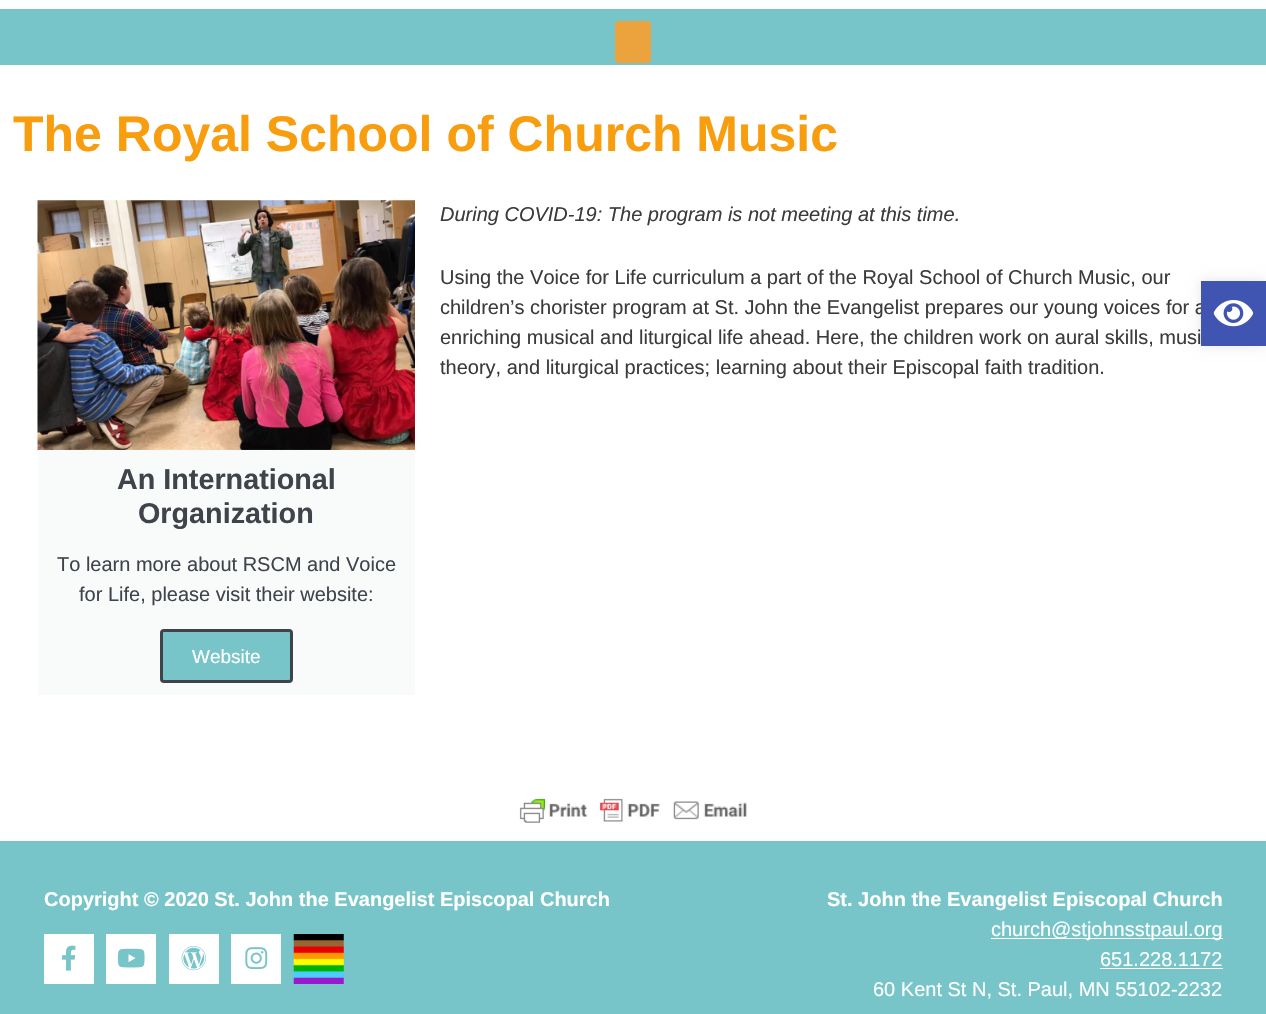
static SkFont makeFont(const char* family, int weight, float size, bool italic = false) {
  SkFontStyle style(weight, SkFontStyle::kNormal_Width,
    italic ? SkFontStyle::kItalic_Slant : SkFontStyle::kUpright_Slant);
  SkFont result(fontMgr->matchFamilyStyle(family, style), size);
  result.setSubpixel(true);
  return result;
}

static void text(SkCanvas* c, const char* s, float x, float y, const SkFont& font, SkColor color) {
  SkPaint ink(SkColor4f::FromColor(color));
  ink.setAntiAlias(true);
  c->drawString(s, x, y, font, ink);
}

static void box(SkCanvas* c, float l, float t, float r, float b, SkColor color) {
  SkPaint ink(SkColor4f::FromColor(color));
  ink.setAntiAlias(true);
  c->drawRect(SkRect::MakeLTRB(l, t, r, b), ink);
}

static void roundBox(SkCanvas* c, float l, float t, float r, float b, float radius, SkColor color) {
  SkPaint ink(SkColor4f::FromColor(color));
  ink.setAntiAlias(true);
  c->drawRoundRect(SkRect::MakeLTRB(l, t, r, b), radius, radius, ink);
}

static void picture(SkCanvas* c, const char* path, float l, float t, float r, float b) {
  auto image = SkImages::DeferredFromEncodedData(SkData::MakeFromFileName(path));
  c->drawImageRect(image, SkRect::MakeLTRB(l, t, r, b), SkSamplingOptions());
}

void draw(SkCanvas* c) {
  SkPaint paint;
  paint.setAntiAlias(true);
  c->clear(0xffffffff);
  box(c, 0, 9, 1266, 65, 0xff77c5c9);
  roundBox(c, 615, 21, 651, 63, 4, 0xffeca23d);
  SkFont face1 = makeFont("Liberation Sans", 700, 50);
  text(c, "The Royal School of Church Music", 13, 151, face1, 0xfff89d0e);
  SkFont face2 = makeFont("Liberation Sans", 400, 20, true);
  text(c, "During COVID-19: The program is not meeting at this time.", 440, 221, face2, 0xff3b3b3b);
  SkFont face3 = makeFont("Liberation Sans", 400, 20);
  text(c, "Using the Voice for Life curriculum a part of the Royal School of Church Music, our", 440, 284, face3, 0xff3b3b3b);
  text(c, "children’s chorister program at St. John the Evangelist prepares our young voices for a", 440, 314, face3, 0xff3b3b3b);
  text(c, "enriching musical and liturgical life ahead. Here, the children work on aural skills, musi", 440, 344, face3, 0xff3b3b3b);
  text(c, "theory, and liturgical practices; learning about their Episcopal faith tradition.", 440, 374, face3, 0xff3b3b3b);
  picture(c, "img_01.png", 37, 200, 415, 451);
  box(c, 38, 450, 415, 695, 0xfff9fafa);
  SkFont face4 = makeFont("Liberation Sans", 700, 28.75f);
  text(c, "An International", 117, 489, face4, 0xff3f444b);
  text(c, "Organization", 138, 523, face4, 0xff3f444b);
  text(c, "To learn more about RSCM and Voice", 57, 571, face3, 0xff3f444b);
  text(c, "for Life, please visit their website:", 79, 601, face3, 0xff3f444b);
  paint.setColor(0xff77c5c9);
  c->drawRoundRect(SkRect::MakeLTRB(161.5f, 630.5f, 291.5f, 681.5f), 2.5f, 2.5f, paint);
  paint.setStyle(SkPaint::kStroke_Style);
  paint.setStrokeWidth(3);
  paint.setColor(0xff3f444b);
  c->drawRoundRect(SkRect::MakeLTRB(161.5f, 630.5f, 291.5f, 681.5f), 2.5f, 2.5f, paint);
  SkFont face5 = makeFont("Liberation Sans", 400, 19);
  text(c, "Website", 192, 663, face5, 0xffffffff);
  paint.setStyle(SkPaint::kFill_Style);
  paint.setColor(0x1a000000);
  paint.setMaskFilter(SkMaskFilter::MakeBlur(kNormal_SkBlurStyle, 6));
  c->drawRect(SkRect::MakeLTRB(1201, 281, 1266, 346), paint);
  paint.setMaskFilter(nullptr);
  box(c, 1201, 281, 1266, 346, 0xff4054b2);
  picture(c, "img_02.png", 1213, 300, 1254, 327);
  picture(c, "img_03.png", 519, 798, 747, 823);
  box(c, 0, 841, 1266, 1014, 0xff77c5c9);
  SkFont face6 = makeFont("Liberation Sans", 700, 20);
  text(c, "Copyright © 2020 St. John the Evangelist Episcopal Church", 44, 906, face6, 0xffffffff);
  box(c, 44, 934, 94, 984, 0xffffffff);
  picture(c, "img_04.png", 62, 945, 76, 971);
  box(c, 106, 934, 156, 984, 0xffffffff);
  picture(c, "img_05.png", 117, 948, 145, 968);
  box(c, 169, 934, 219, 984, 0xffffffff);
  picture(c, "img_06.png", 181, 946, 206, 971);
  box(c, 231, 934, 281, 984, 0xffffffff);
  picture(c, "img_07.png", 245, 947, 268, 970);
  picture(c, "img_08.png", 293, 934, 344, 984);
  text(c, "St. John the Evangelist Episcopal Church", 827, 906, face6, 0xffffffff);
  box(c, 991, 938, 1223, 939, 0xffffffff);
  text(c, "church@stjohnsstpaul.org", 991, 936, face3, 0xffffffff);
  text(c, "651.228.1172", 1100, 966, face3, 0xffffffff);
  box(c, 1100, 968, 1223, 969, 0xffffffff);
  text(c, "60 Kent St N, St. Paul, MN 55102-2232", 873, 996, face3, 0xffffffff);
}
